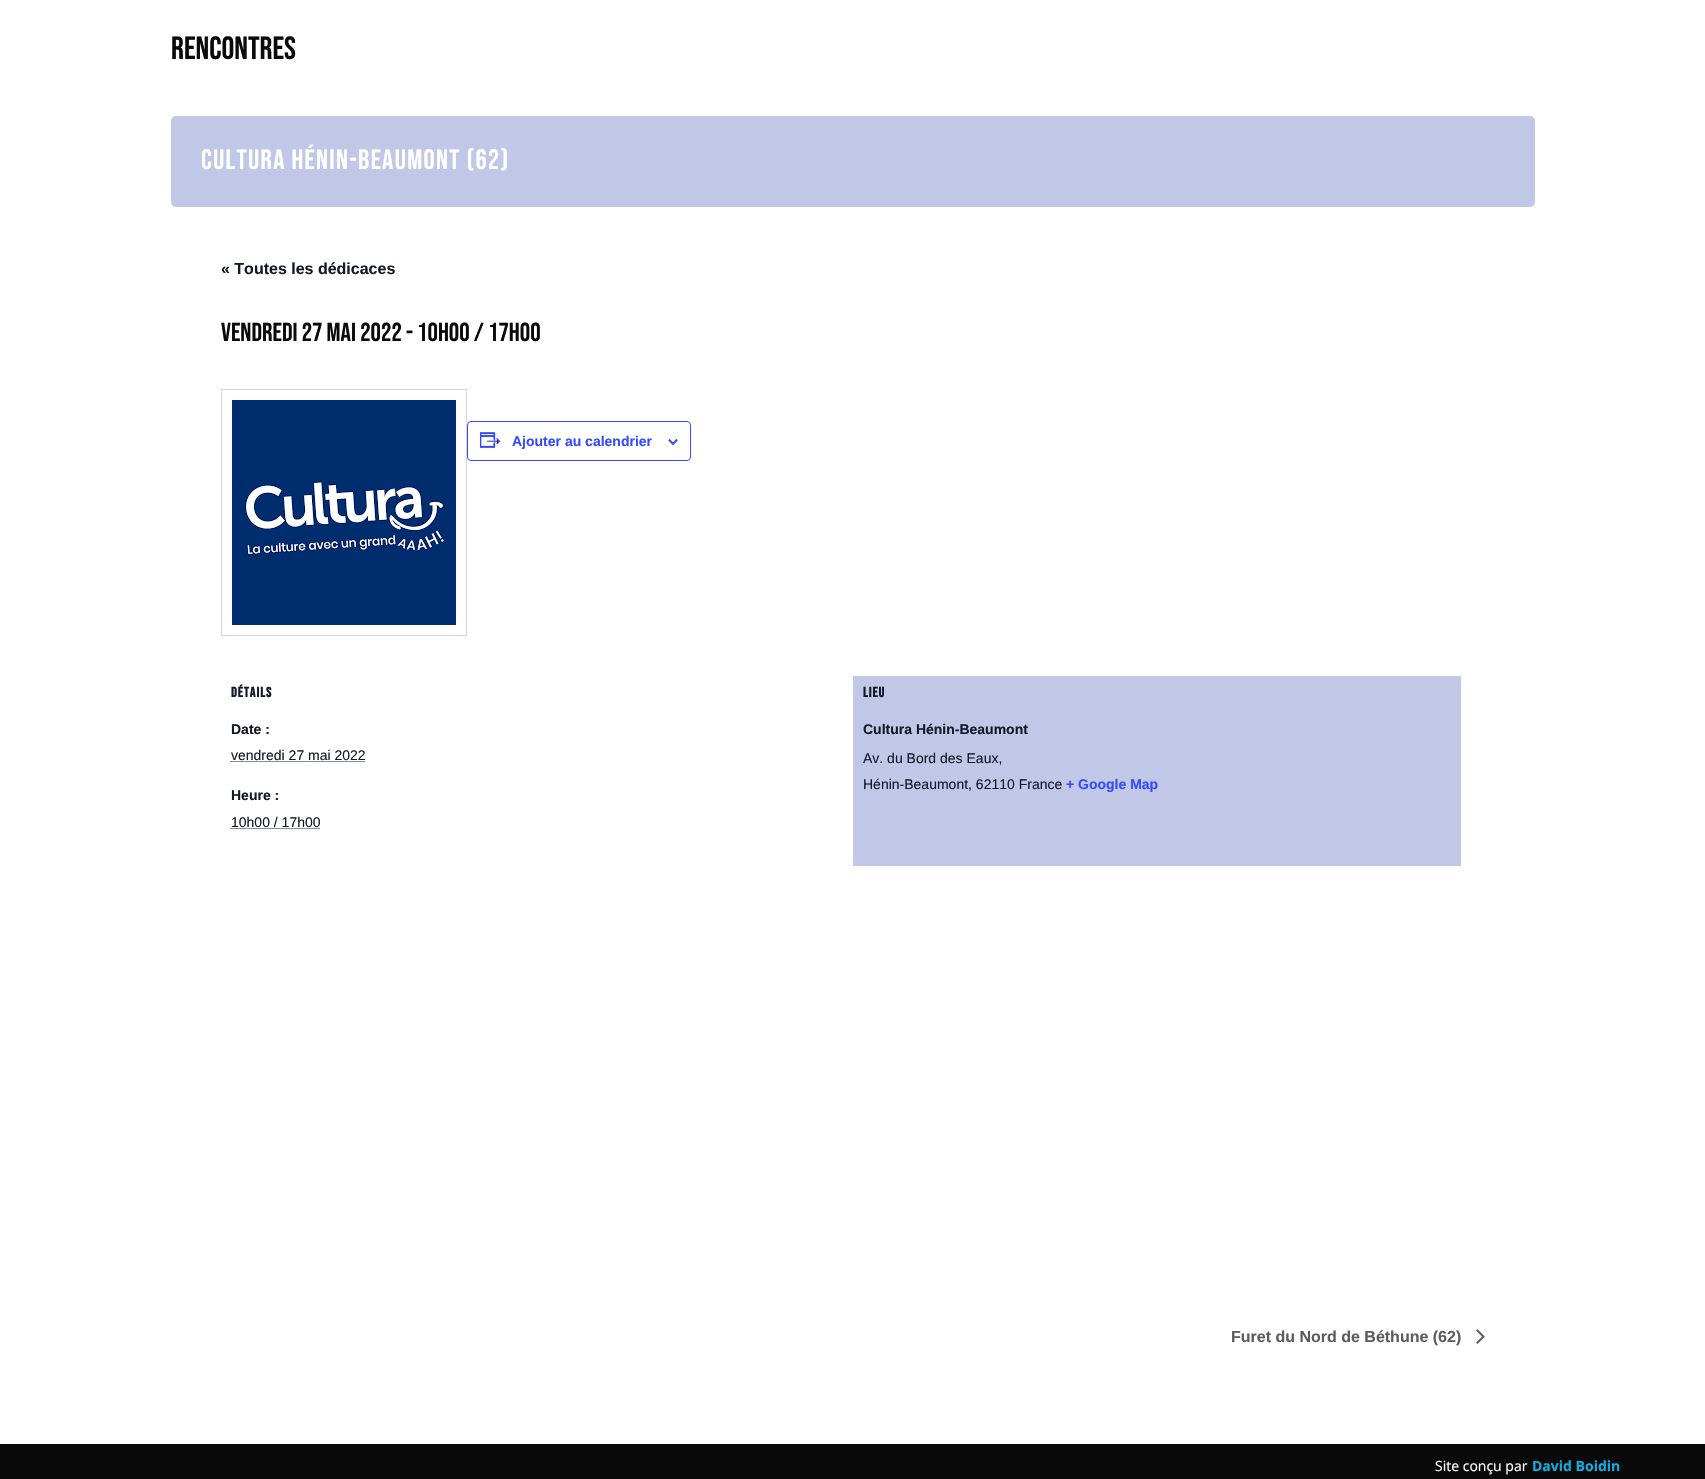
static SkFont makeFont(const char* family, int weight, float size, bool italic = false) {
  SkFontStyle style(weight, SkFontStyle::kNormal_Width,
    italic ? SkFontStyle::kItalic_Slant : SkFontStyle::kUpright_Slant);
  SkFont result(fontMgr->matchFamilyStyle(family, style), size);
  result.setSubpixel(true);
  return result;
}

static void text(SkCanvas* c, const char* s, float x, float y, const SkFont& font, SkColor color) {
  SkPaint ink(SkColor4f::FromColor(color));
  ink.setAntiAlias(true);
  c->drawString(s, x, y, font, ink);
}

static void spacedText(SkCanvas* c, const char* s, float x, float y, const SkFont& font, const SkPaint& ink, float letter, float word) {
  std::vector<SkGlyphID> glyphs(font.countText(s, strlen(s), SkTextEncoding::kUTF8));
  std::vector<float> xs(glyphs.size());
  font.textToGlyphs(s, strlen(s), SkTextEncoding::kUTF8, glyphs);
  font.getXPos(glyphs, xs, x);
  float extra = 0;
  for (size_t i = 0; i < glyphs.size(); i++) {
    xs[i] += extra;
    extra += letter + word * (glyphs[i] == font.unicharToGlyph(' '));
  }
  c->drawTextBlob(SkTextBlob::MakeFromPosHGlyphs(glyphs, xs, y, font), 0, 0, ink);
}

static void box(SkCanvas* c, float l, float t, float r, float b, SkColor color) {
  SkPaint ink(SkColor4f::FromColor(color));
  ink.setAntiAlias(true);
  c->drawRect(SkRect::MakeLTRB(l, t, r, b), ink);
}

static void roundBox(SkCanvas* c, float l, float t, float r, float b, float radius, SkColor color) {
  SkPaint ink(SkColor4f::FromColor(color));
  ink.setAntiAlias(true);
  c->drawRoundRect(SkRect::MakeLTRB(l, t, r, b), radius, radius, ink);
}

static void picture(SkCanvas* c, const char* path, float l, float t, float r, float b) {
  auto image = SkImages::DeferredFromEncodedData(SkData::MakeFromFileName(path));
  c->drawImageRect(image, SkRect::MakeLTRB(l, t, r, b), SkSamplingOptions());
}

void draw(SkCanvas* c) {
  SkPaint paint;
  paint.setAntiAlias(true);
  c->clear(0xffffffff);
  SkFont face1 = makeFont("Bebas Neue", 400, 32);
  text(c, "Rencontres", 171, 59, face1, 0xff0a0a0a);
  roundBox(c, 171, 116, 1535, 207, 5, 0xffc0c7e7);
  SkFont face2 = makeFont("Bebas Neue", 400, 28);
  paint.setColor(0xffffffff);
  spacedText(c, "Cultura Hénin-Beaumont (62)", 201, 169, face2, paint, 1.3f, 0);
  SkFont face3 = makeFont("Liberation Sans", 700, 16);
  text(c, "« Toutes les dédicaces", 221, 274, face3, 0xff141827);
  SkFont face4 = makeFont("Bebas Neue", 400, 26);
  text(c, "vendredi 27 mai 2022 - 10h00 / 17h00", 221, 341, face4, 0xff0a0a0a);
  paint.setStyle(SkPaint::kStroke_Style);
  paint.setStrokeWidth(1);
  paint.setColor(0xffd8d8d8);
  c->drawRect(SkRect::MakeLTRB(221.5f, 389.5f, 466.5f, 635.5f), paint);
  picture(c, "img_01.png", 232, 400, 456, 625);
  paint.setColor(0xff334aff);
  c->drawRoundRect(SkRect::MakeLTRB(467.5f, 421.5f, 690.5f, 460.5f), 3.5f, 3.5f, paint);
  picture(c, "img_02.png", 480, 432, 501, 448);
  SkFont face5 = makeFont("Liberation Sans", 700, 14);
  text(c, "Ajouter au calendrier", 512, 446, face5, 0xff334aff);
  picture(c, "img_03.png", 668, 439, 678, 445);
  SkFont face6 = makeFont("Bebas Neue", 700, 14);
  paint.setStyle(SkPaint::kFill_Style);
  paint.setColor(0xff141827);
  spacedText(c, "DÉTAILS", 231, 697, face6, paint, 1, 0);
  text(c, "Date :", 231, 734, face5, 0xff141827);
  SkFont face7 = makeFont("Liberation Sans", 400, 14);
  text(c, "vendredi 27 mai 2022", 231, 760, face7, 0xff141827);
  paint.setStyle(SkPaint::kStroke_Style);
  paint.setPathEffect(SkDashPathEffect::Make({{1, 1}}, 0));
  c->drawPath(SkPathBuilder().moveTo(230.5f, 761.5f).lineTo(365, 761.5f).detach(), paint);
  paint.setPathEffect(nullptr);
  text(c, "Heure :", 231, 800, face5, 0xff141827);
  text(c, "10h00 / 17h00", 231, 827, face7, 0xff141827);
  paint.setPathEffect(SkDashPathEffect::Make({{1, 1}}, 0));
  c->drawPath(SkPathBuilder().moveTo(230.5f, 828.5f).lineTo(320, 828.5f).detach(), paint);
  paint.setPathEffect(nullptr);
  box(c, 853, 676, 1461, 866, 0xffc0c7e7);
  paint.setStyle(SkPaint::kFill_Style);
  spacedText(c, "LIEU", 863, 697, face6, paint, 1, 0);
  text(c, "Cultura Hénin-Beaumont", 863, 734, face5, 0xff141827);
  text(c, "Av. du Bord des Eaux,", 863, 763, face7, 0xff141827);
  text(c, "Hénin-Beaumont, 62110 France", 863, 789, face7, 0xff141827);
  text(c, "+ Google Map", 1066, 789, face5, 0xff334aff);
  text(c, "Furet du Nord de Béthune (62)", 1231, 1342, face3, 0xff5d5d5d);
  picture(c, "img_04.png", 1476, 1329, 1485, 1344);
  box(c, 0, 1444, 1705, 1479, 0xff0a0a0a);
  SkFont face8 = makeFont("Open Sans", 400, 14);
  text(c, "Site conçu par", 1435, 1471, face8, 0xffffffff);
  SkFont face9 = makeFont("Open Sans", 700, 14);
  text(c, "David Boidin", 1532, 1471, face9, 0xff0dafe5);
}
